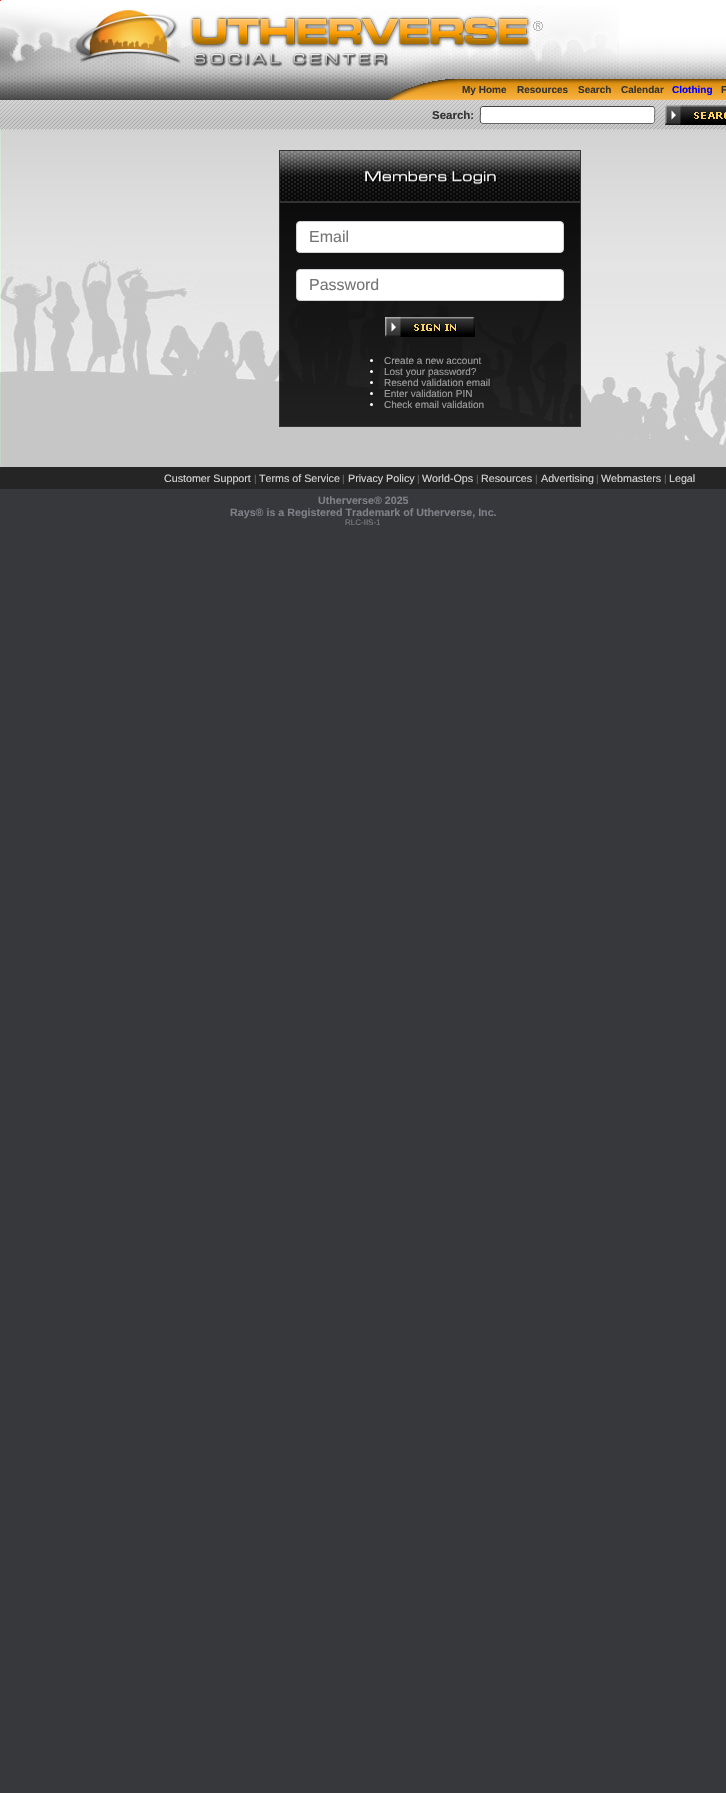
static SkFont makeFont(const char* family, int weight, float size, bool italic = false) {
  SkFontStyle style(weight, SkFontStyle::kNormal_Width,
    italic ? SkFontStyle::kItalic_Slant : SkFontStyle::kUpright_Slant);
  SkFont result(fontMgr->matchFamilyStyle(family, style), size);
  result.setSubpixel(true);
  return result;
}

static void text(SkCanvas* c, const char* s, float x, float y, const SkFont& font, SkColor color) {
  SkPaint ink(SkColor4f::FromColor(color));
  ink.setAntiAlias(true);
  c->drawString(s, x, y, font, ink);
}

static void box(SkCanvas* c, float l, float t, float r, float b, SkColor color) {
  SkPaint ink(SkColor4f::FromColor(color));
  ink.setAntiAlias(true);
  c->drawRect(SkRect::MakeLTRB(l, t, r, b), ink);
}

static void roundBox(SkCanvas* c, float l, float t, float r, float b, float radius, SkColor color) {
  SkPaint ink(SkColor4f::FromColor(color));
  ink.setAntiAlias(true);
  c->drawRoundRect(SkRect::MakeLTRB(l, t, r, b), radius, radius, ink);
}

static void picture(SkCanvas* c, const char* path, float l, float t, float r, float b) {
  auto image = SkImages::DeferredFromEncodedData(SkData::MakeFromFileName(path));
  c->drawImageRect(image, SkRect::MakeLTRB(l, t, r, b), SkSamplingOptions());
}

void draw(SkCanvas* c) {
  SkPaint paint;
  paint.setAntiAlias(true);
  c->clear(0xff37383b);
  picture(c, "img_02.png", 0, 0, 726, 100);
  box(c, 0, 0, 1, 1, 0xfffe3232);
  picture(c, "img_01.png", 0, 130, 726, 467);
  picture(c, "img_03.png", 0, 5, 619, 79);
  picture(c, "img_04.png", 387, 79, 457, 100);
  picture(c, "img_05.png", 457, 79, 512, 100);
  SkFont face1 = makeFont("Liberation Sans", 700, 10);
  text(c, "My Home", 462, 93, face1, 0xff333333);
  picture(c, "img_06.png", 512, 79, 573, 100);
  text(c, "Resources", 517, 93, face1, 0xff333333);
  picture(c, "img_07.png", 573, 79, 616, 100);
  text(c, "Search", 578, 93, face1, 0xff333333);
  picture(c, "img_08.png", 616, 79, 669, 100);
  text(c, "Calendar", 621, 93, face1, 0xff333333);
  picture(c, "img_09.png", 669, 79, 716, 100);
  text(c, "Clothing", 672, 93, face1, 0xff0000ff);
  picture(c, "img_10.png", 716, 79, 726, 100);
  text(c, "F", 721, 93, face1, 0xff333333);
  picture(c, "img_11.png", 0, 100, 726, 130);
  SkFont face2 = makeFont("Liberation Sans", 700, 11.5f);
  text(c, "Search:", 432, 119, face2, 0xff333333);
  roundBox(c, 480, 106, 655, 124, 3, 0xffffffff);
  paint.setStyle(SkPaint::kStroke_Style);
  paint.setStrokeWidth(1);
  paint.setColor(0xff666666);
  c->drawPath(SkPathBuilder().moveTo(654, 107).cubicTo(655.5f, 109, 654.5f, 115, 654.5f, 117).cubicTo(654.5f, 119, 655.5f, 123.5f, 652, 123.5f).lineTo(483, 123.5f).lineTo(481, 123).detach(), paint);
  paint.setColor(0xff444444);
  c->drawPath(SkPathBuilder().moveTo(481, 123).cubicTo(479.5f, 121, 480.5f, 115, 480.5f, 113).cubicTo(480.5f, 111, 479.5f, 106.5f, 483, 106.5f).lineTo(652, 106.5f).lineTo(654, 107).detach(), paint);
  picture(c, "img_12.png", 665, 105, 726, 125);
  paint.setColor(0xff333333);
  c->drawRect(SkRect::MakeLTRB(279.5f, 150.5f, 580.5f, 201.5f), paint);
  picture(c, "img_13.png", 280, 151, 580, 201);
  picture(c, "img_14.png", 280, 203, 580, 426);
  c->drawRect(SkRect::MakeLTRB(279.5f, 202.5f, 580.5f, 426.5f), paint);
  paint.setStyle(SkPaint::kFill_Style);
  paint.setColor(0xffffffff);
  c->drawRoundRect(SkRect::MakeLTRB(296.5f, 221.5f, 563.5f, 252.5f), 3.5f, 3.5f, paint);
  paint.setStyle(SkPaint::kStroke_Style);
  paint.setColor(0xffced4da);
  c->drawRoundRect(SkRect::MakeLTRB(296.5f, 221.5f, 563.5f, 252.5f), 3.5f, 3.5f, paint);
  SkFont face3 = makeFont("Liberation Sans", 400, 16);
  text(c, "Email", 309, 242, face3, 0xff757575);
  paint.setStyle(SkPaint::kFill_Style);
  paint.setColor(0xffffffff);
  c->drawRoundRect(SkRect::MakeLTRB(296.5f, 269.5f, 563.5f, 300.5f), 3.5f, 3.5f, paint);
  paint.setStyle(SkPaint::kStroke_Style);
  paint.setColor(0xffced4da);
  c->drawRoundRect(SkRect::MakeLTRB(296.5f, 269.5f, 563.5f, 300.5f), 3.5f, 3.5f, paint);
  text(c, "Password", 309, 290, face3, 0xff757575);
  picture(c, "img_15.png", 385, 317, 475, 337);
  paint.setStyle(SkPaint::kFill_Style);
  paint.setColor(0xffffffff);
  c->drawCircle(371.5f, 360.5f, 1.5f, paint);
  SkFont face4 = makeFont("Liberation Sans", 400, 10);
  text(c, "Create a new account", 384, 364, face4, 0xffa0a0a0);
  c->drawCircle(371.5f, 371.5f, 1.5f, paint);
  text(c, "Lost your password?", 384, 375, face4, 0xffa0a0a0);
  c->drawCircle(371.5f, 382.5f, 1.5f, paint);
  text(c, "Resend validation email", 384, 386, face4, 0xffa0a0a0);
  c->drawCircle(371.5f, 393.5f, 1.5f, paint);
  text(c, "Enter validation PIN", 384, 397, face4, 0xffa0a0a0);
  c->drawCircle(371.5f, 404.5f, 1.5f, paint);
  text(c, "Check email validation", 384, 408, face4, 0xffa0a0a0);
  box(c, 0, 467, 726, 489, 0xff252525);
  SkFont face5 = makeFont("Liberation Sans", 400, 10.7f);
  text(c, "Customer Support", 164, 482, face5, 0xffdad7d8);
  text(c, "|", 254, 482, face4, 0xff686868);
  text(c, "Terms of Service", 259, 482, face5, 0xffdad7d8);
  text(c, "|", 342, 482, face4, 0xff686868);
  text(c, "Privacy Policy", 348, 482, face5, 0xffdad7d8);
  text(c, "|", 417, 482, face4, 0xff686868);
  text(c, "World-Ops", 422, 482, face5, 0xffdad7d8);
  text(c, "|", 476, 482, face4, 0xff686868);
  text(c, "Resources", 481, 482, face5, 0xffdad7d8);
  text(c, "|", 535, 482, face4, 0xff686868);
  text(c, "Advertising", 541, 482, face5, 0xffdad7d8);
  text(c, "|", 596, 482, face4, 0xff686868);
  text(c, "Webmasters", 601, 482, face5, 0xffdad7d8);
  text(c, "|", 664, 482, face4, 0xff686868);
  text(c, "Legal", 669, 482, face5, 0xffdad7d8);
  SkFont face6 = makeFont("Liberation Sans", 700, 10.7f);
  text(c, "Utherverse® 2025", 318, 504, face6, 0xff808088);
  text(c, "Rays® is a Registered Trademark of Utherverse, Inc.", 230, 516, face6, 0xff808088);
  SkFont face7 = makeFont("Liberation Sans", 400, 8);
  text(c, "RLC-IIS-1", 345, 525, face7, 0xff808088);
}
